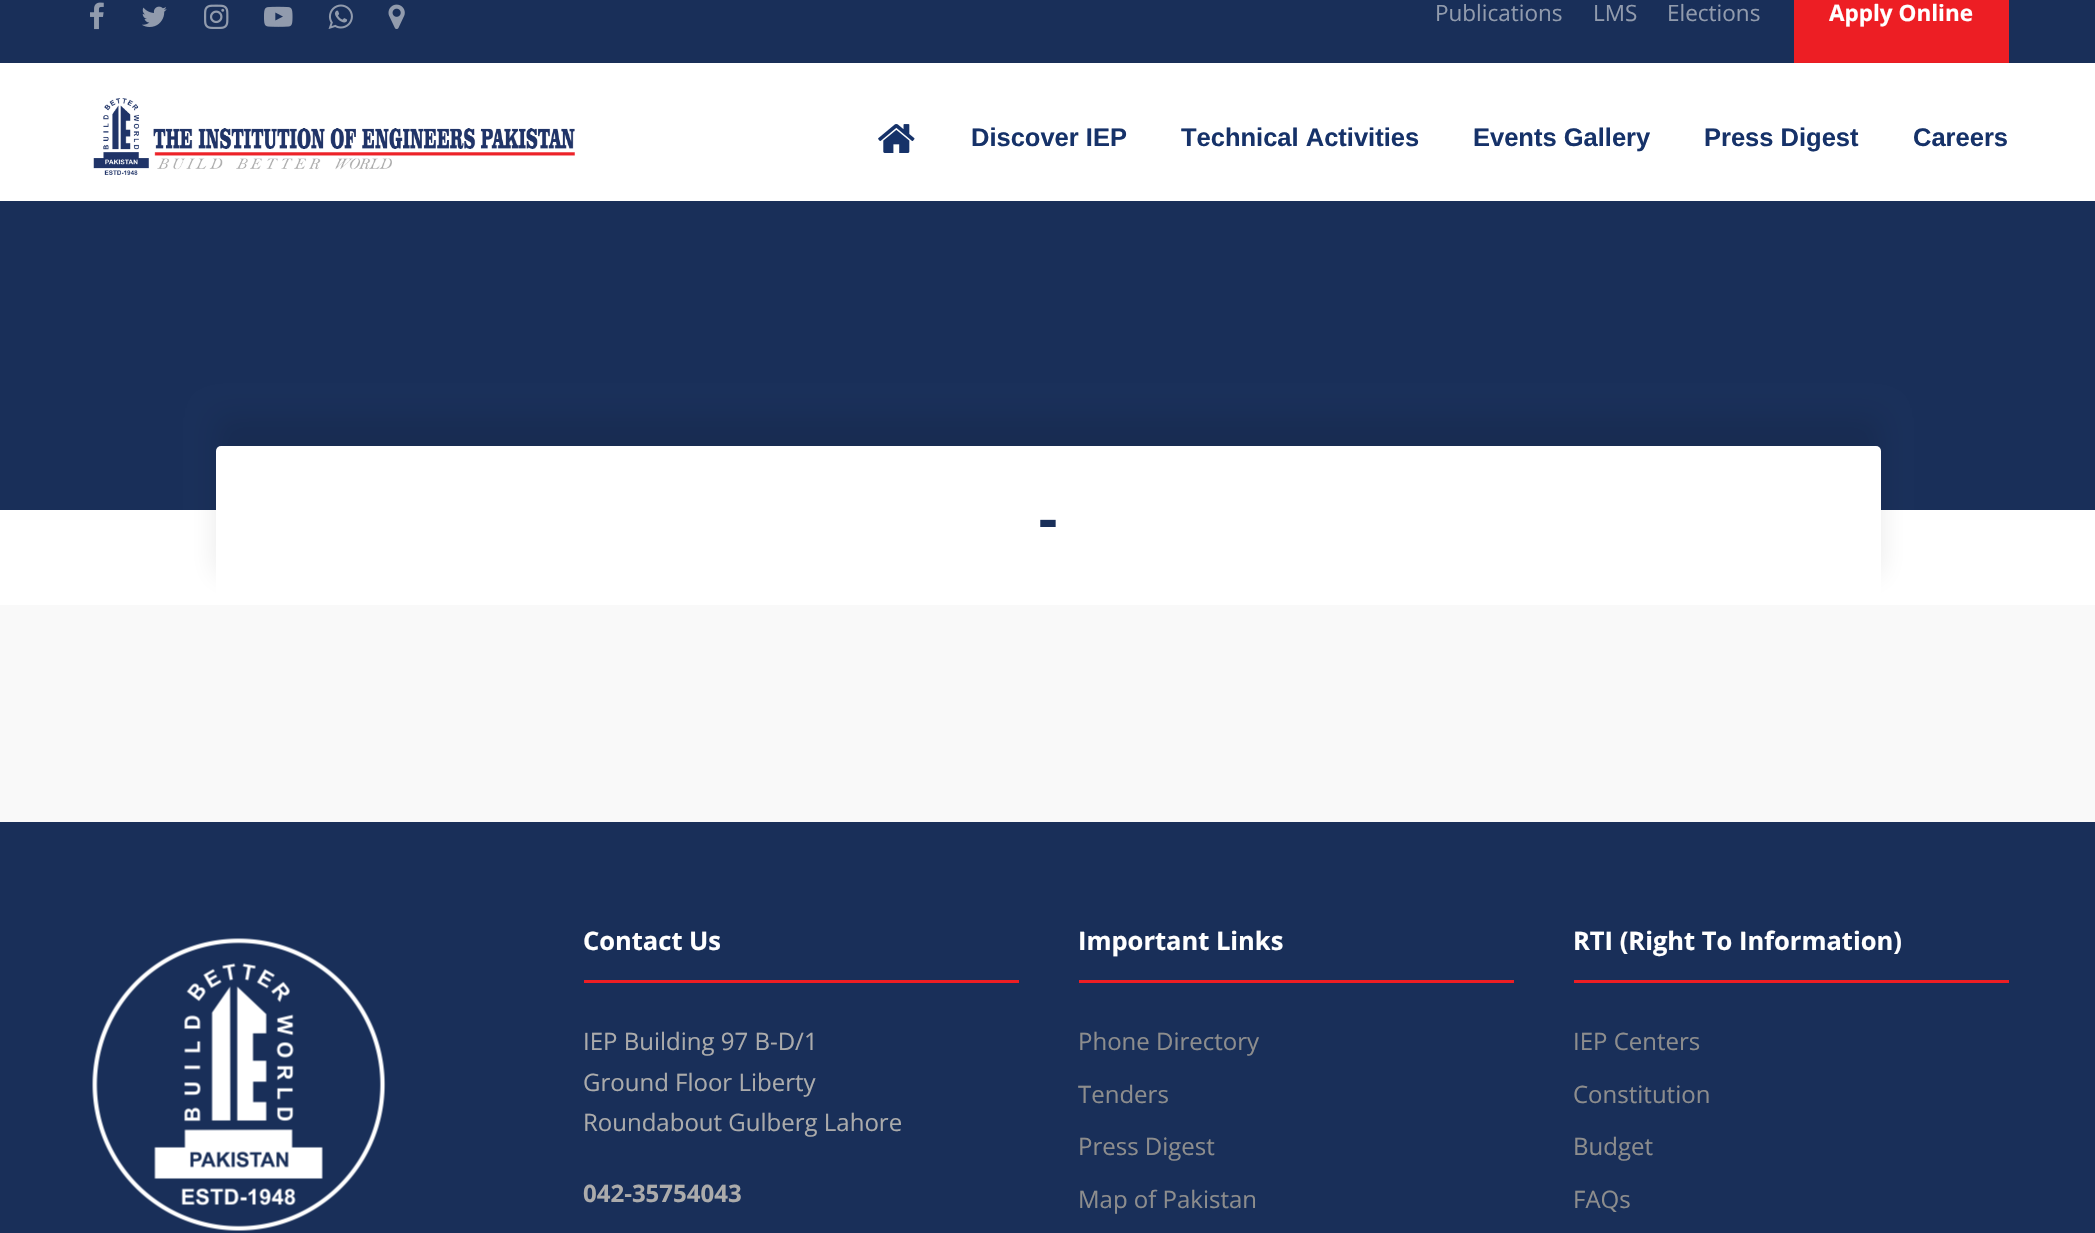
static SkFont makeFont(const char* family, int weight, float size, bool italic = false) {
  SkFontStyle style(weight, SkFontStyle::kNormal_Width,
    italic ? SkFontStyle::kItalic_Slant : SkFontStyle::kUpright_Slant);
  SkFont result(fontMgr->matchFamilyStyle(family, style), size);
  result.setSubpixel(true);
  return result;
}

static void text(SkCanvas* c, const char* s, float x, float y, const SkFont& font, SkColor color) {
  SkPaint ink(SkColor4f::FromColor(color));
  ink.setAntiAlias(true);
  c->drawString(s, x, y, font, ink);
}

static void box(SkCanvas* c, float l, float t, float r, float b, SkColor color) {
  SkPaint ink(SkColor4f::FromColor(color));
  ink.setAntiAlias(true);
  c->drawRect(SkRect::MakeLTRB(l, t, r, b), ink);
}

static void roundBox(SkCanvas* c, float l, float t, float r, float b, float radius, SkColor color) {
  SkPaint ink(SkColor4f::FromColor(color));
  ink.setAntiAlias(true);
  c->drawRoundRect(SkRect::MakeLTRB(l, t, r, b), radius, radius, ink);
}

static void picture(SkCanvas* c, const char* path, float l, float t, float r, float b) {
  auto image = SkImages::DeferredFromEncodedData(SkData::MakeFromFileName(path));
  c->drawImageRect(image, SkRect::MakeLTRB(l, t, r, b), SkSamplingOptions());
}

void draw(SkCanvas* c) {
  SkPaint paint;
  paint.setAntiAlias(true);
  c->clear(0xffffffff);
  box(c, 0, 0, 2095, 63, 0xff192f59);
  picture(c, "img_01.png", 90, 2, 104, 30);
  picture(c, "img_02.png", 142, 6, 167, 27);
  picture(c, "img_03.png", 204, 4, 229, 29);
  picture(c, "img_04.png", 264, 6, 293, 27);
  picture(c, "img_05.png", 328, 4, 353, 29);
  picture(c, "img_06.png", 388, 4, 405, 29);
  SkFont face1 = makeFont("Open Sans", 400, 22.5f);
  text(c, "Publications", 1435, 21, face1, 0xff919bad);
  text(c, "LMS", 1593, 21, face1, 0xff919bad);
  text(c, "Elections", 1667, 21, face1, 0xff919bad);
  box(c, 1794, 0, 2009, 63, 0xffed1e24);
  SkFont face2 = makeFont("Open Sans", 700, 22.5f);
  text(c, "Apply Online", 1829, 21, face2, 0xffffffff);
  c->save();
  c->clipRect(SkRect::MakeLTRB(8, 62, 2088, 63));
  paint.setColor(0x1a000000);
  paint.setMaskFilter(SkMaskFilter::MakeBlur(kNormal_SkBlurStyle, 3));
  c->drawRect(SkRect::MakeLTRB(0, 65, 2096, 203), paint);
  paint.setMaskFilter(nullptr);
  c->restore();
  picture(c, "img_07.png", 93, 98, 575, 175);
  picture(c, "img_08.png", 878, 124, 915, 153);
  SkFont face3 = makeFont("Liberation Sans", 700, 25.5f);
  text(c, "Discover IEP", 971, 146, face3, 0xff163269);
  text(c, "Technical Activities", 1181, 146, face3, 0xff163269);
  text(c, "Events Gallery", 1473, 146, face3, 0xff163269);
  text(c, "Press Digest", 1704, 146, face3, 0xff163269);
  text(c, "Careers", 1913, 146, face3, 0xff163269);
  box(c, 0, 201, 2095, 510, 0xff192f59);
  box(c, 0, 605, 2095, 822, 0xfff9f9f9);
  paint.setColor(0x170a0a0a);
  paint.setMaskFilter(SkMaskFilter::MakeBlur(kNormal_SkBlurStyle, 14));
  c->drawRoundRect(SkRect::MakeLTRB(216, 416, 1881, 575), 5, 5, paint);
  paint.setMaskFilter(nullptr);
  roundBox(c, 216, 446, 1881, 605, 5, 0xffffffff);
  SkFont face4 = makeFont("Liberation Sans", 700, 60);
  text(c, "-", 1038, 539, face4, 0xff192f59);
  box(c, 0, 822, 2095, 1233, 0xff192f59);
  picture(c, "img_09.png", 92, 938, 386, 1231);
  box(c, 584, 980, 1019, 983, 0xffed1e24);
  SkFont face5 = makeFont("Open Sans", 700, 25.5f);
  text(c, "Contact Us", 583, 950, face5, 0xffffffff);
  SkFont face6 = makeFont("Open Sans", 400, 24);
  text(c, "IEP Building 97 B-D/1", 583, 1050, face6, 0xffababab);
  text(c, "Ground Floor Liberty", 583, 1091, face6, 0xffababab);
  text(c, "Roundabout Gulberg Lahore", 583, 1131, face6, 0xffababab);
  SkFont face7 = makeFont("Open Sans", 700, 24);
  text(c, "042-35754043", 583, 1202, face7, 0xffababab);
  box(c, 1079, 980, 1514, 983, 0xffed1e24);
  text(c, "Important Links", 1078, 950, face5, 0xffffffff);
  text(c, "Phone Directory", 1078, 1050, face6, 0xff8d8d8d);
  text(c, "Tenders", 1078, 1103, face6, 0xff8d8d8d);
  text(c, "Press Digest", 1078, 1155, face6, 0xff8d8d8d);
  text(c, "Map of Pakistan", 1078, 1208, face6, 0xff8d8d8d);
  box(c, 1574, 980, 2009, 983, 0xffed1e24);
  text(c, "RTI (Right To Information)", 1573, 950, face5, 0xffffffff);
  text(c, "IEP Centers", 1573, 1050, face6, 0xff8d8d8d);
  text(c, "Constitution", 1573, 1103, face6, 0xff8d8d8d);
  text(c, "Budget", 1573, 1155, face6, 0xff8d8d8d);
  text(c, "FAQs", 1573, 1208, face6, 0xff8d8d8d);
}
